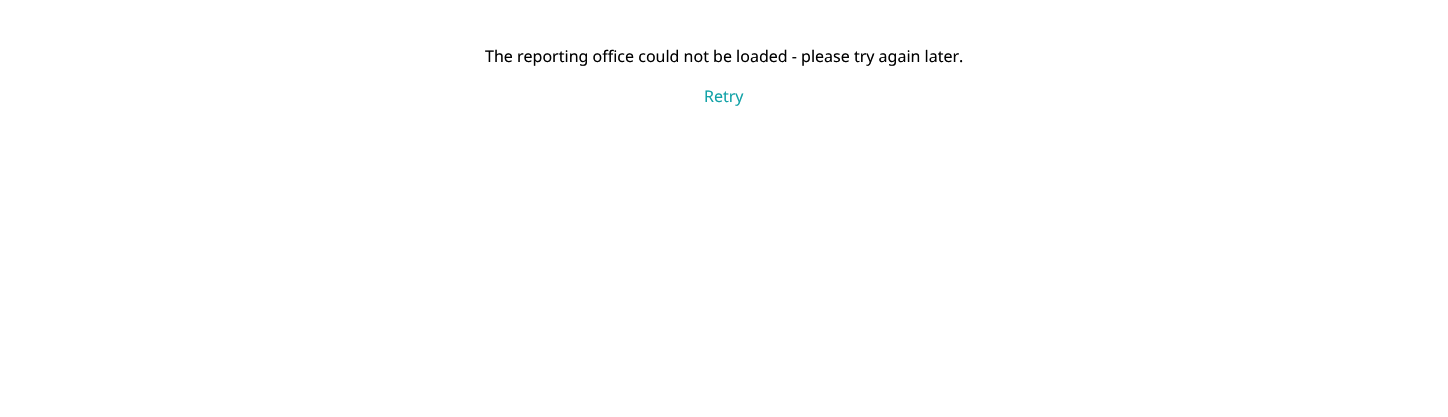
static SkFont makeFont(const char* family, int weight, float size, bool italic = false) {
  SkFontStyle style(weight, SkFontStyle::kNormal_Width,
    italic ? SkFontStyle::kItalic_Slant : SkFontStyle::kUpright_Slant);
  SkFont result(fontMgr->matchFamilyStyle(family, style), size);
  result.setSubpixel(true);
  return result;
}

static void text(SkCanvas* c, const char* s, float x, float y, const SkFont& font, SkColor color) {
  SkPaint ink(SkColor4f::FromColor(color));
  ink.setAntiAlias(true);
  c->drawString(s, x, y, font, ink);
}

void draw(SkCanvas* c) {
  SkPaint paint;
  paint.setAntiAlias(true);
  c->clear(0xffffffff);
  SkFont face1 = makeFont("Noto Sans", 400, 16);
  text(c, "The reporting office could not be loaded - please try again later.", 485, 62, face1, 0xff000000);
  text(c, "Retry", 704, 102, face1, 0xff11a2a7);
}
